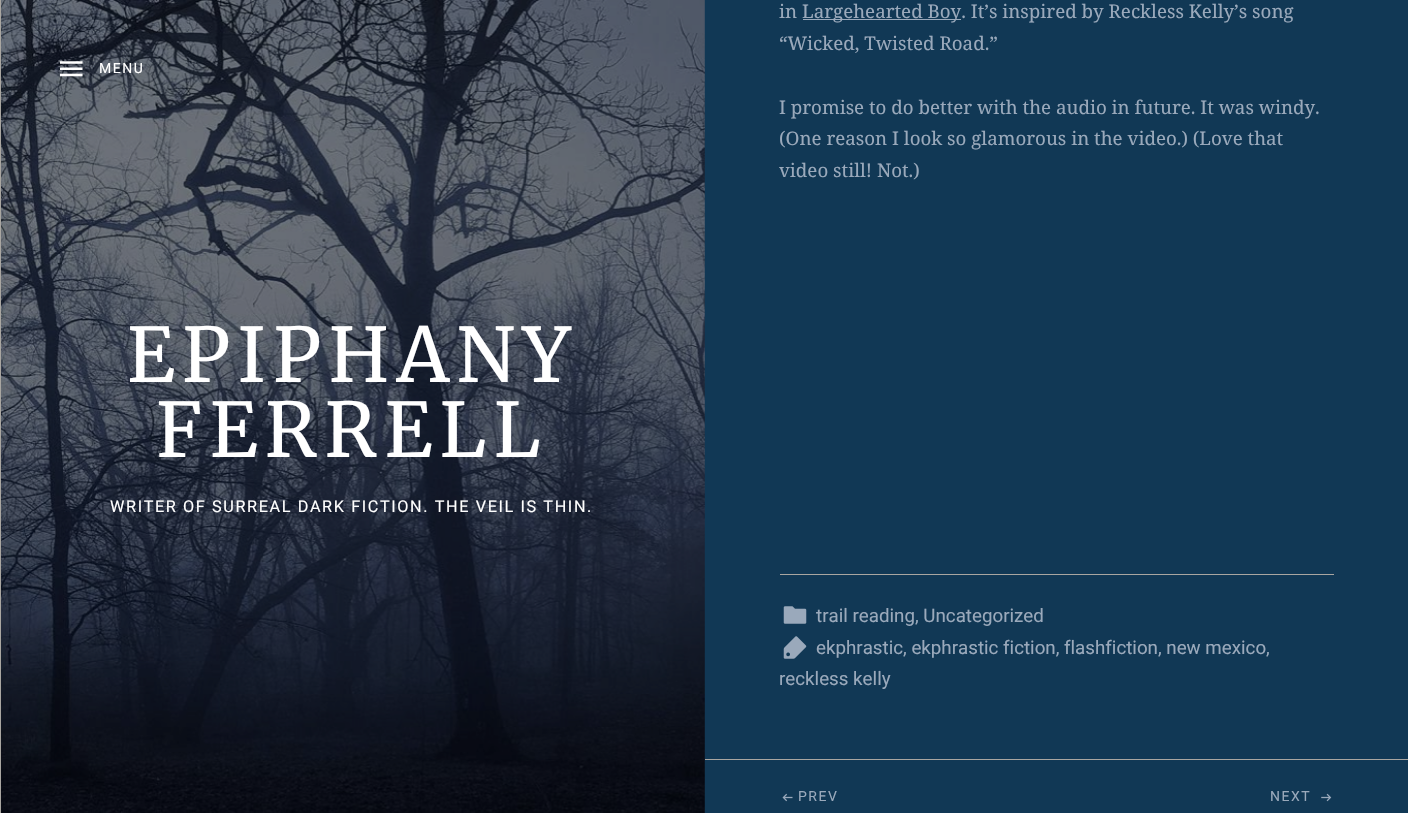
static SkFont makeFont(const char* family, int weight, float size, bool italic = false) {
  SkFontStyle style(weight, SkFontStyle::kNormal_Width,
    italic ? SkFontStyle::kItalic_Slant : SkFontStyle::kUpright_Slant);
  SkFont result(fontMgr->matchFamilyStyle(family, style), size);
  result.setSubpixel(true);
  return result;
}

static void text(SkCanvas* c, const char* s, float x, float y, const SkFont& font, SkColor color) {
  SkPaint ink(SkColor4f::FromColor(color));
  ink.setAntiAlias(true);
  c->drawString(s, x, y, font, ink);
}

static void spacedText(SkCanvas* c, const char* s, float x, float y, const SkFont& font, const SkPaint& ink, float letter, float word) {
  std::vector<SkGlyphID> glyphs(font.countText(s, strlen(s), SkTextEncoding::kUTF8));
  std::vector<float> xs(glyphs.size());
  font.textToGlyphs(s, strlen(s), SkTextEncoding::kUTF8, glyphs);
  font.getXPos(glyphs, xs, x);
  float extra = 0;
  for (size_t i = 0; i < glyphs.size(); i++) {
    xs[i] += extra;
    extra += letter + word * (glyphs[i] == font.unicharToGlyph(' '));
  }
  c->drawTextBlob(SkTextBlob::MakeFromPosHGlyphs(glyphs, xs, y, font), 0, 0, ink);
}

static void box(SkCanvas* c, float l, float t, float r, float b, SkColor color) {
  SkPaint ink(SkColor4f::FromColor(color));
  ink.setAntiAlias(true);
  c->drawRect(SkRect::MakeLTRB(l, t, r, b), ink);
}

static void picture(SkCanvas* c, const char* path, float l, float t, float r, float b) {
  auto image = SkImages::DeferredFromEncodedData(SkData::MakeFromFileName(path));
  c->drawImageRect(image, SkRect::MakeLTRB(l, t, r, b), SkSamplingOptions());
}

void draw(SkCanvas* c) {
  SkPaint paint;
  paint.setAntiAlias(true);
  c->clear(0xff113855);
  picture(c, "img_01.png", 1, 0, 705, 813);
  box(c, 0, 0, 1, 813, 0xffa9a6a1);
  picture(c, "img_02.png", 60, 61, 83, 77);
  SkFont face1 = makeFont("Roboto", 400, 14);
  paint.setColor(0xffffffff);
  spacedText(c, "MENU", 99, 73, face1, paint, 1.5f, 0);
  SkFont face2 = makeFont("Merriweather", 300, 75);
  spacedText(c, "EPIPHANY", 127, 382, face2, paint, 7.5f, 0);
  spacedText(c, "FERRELL", 156, 457, face2, paint, 7.5f, 0);
  SkFont face3 = makeFont("Roboto", 400, 16.25f);
  spacedText(c, "WRITER OF SURREAL DARK FICTION. THE VEIL IS THIN.", 110, 512, face3, paint, 1.6f, 0);
  SkFont face4 = makeFont("Noto Serif", 400, 18.75f);
  text(c, "in", 779, 18, face4, 0xff9aa9bb);
  box(c, 803, 19, 961, 20, 0xff9aa9bb);
  text(c, "Largehearted Boy. It’s inspired by Reckless Kelly’s song", 802, 18, face4, 0xff9aa9bb);
  text(c, "“Wicked, Twisted Road.”", 779, 50, face4, 0xff9aa9bb);
  text(c, "I promise to do better with the audio in future. It was windy.", 779, 114, face4, 0xff9aa9bb);
  text(c, "(One reason I look so glamorous in the video.) (Love that", 779, 145, face4, 0xff9aa9bb);
  text(c, "video still! Not.)", 779, 177, face4, 0xff9aa9bb);
  box(c, 780, 574, 1334, 575, 0xffa9a6a1);
  picture(c, "img_03.png", 783, 606, 807, 624);
  SkFont face5 = makeFont("Roboto", 400, 18.75f);
  text(c, "trail reading, Uncategorized", 816, 622, face5, 0xff9aa9bb);
  picture(c, "img_04.png", 783, 636, 807, 659);
  text(c, "ekphrastic, ekphrastic fiction, flashfiction, new mexico,", 816, 654, face5, 0xff9aa9bb);
  text(c, "reckless kelly", 779, 685, face5, 0xff9aa9bb);
  box(c, 705, 759, 1408, 760, 0xffa9a6a1);
  picture(c, "img_05.png", 782, 793, 793, 802);
  paint.setColor(0xff9aa9bb);
  spacedText(c, "PREV", 798, 801, face1, paint, 1.5f, 0);
  spacedText(c, "NEXT", 1270, 801, face1, paint, 1.5f, 0);
  picture(c, "img_06.png", 1321, 793, 1332, 802);
}
